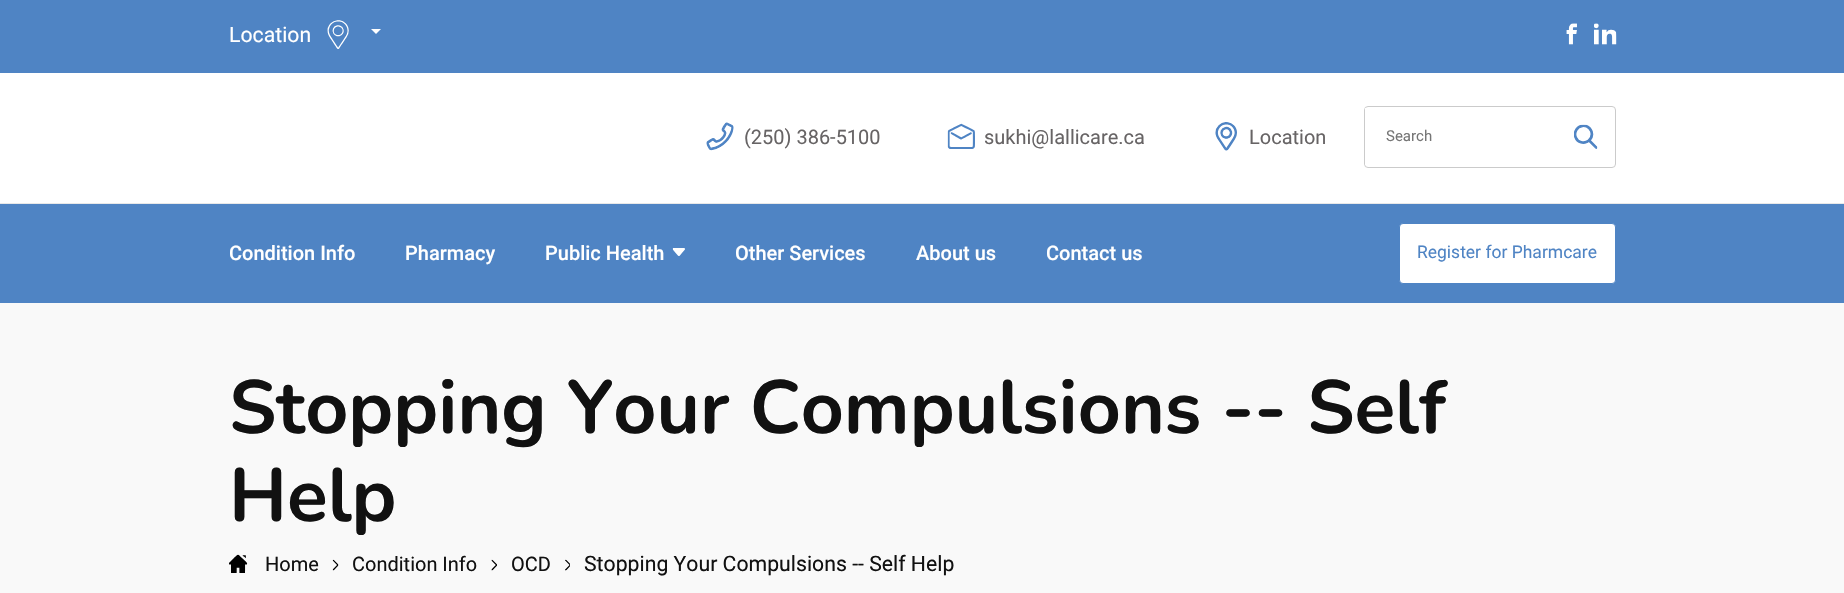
static SkFont makeFont(const char* family, int weight, float size, bool italic = false) {
  SkFontStyle style(weight, SkFontStyle::kNormal_Width,
    italic ? SkFontStyle::kItalic_Slant : SkFontStyle::kUpright_Slant);
  SkFont result(fontMgr->matchFamilyStyle(family, style), size);
  result.setSubpixel(true);
  return result;
}

static void text(SkCanvas* c, const char* s, float x, float y, const SkFont& font, SkColor color) {
  SkPaint ink(SkColor4f::FromColor(color));
  ink.setAntiAlias(true);
  c->drawString(s, x, y, font, ink);
}

static void box(SkCanvas* c, float l, float t, float r, float b, SkColor color) {
  SkPaint ink(SkColor4f::FromColor(color));
  ink.setAntiAlias(true);
  c->drawRect(SkRect::MakeLTRB(l, t, r, b), ink);
}

static void picture(SkCanvas* c, const char* path, float l, float t, float r, float b) {
  auto image = SkImages::DeferredFromEncodedData(SkData::MakeFromFileName(path));
  c->drawImageRect(image, SkRect::MakeLTRB(l, t, r, b), SkSamplingOptions());
}

void draw(SkCanvas* c) {
  SkPaint paint;
  paint.setAntiAlias(true);
  c->clear(0xffffffff);
  box(c, 0, 0, 1844, 73, 0xff4f84c4);
  SkFont face1 = makeFont("Roboto", 400, 21.25f);
  text(c, "Location", 229, 42, face1, 0xffffffff);
  picture(c, "img_01.png", 327, 20, 349, 49);
  paint.setColor(0xffffffff);
  c->drawPath(SkPathBuilder().moveTo(371, 29).lineTo(381, 29).lineTo(376, 34).close().detach(), paint);
  picture(c, "img_02.png", 1566, 23, 1577, 45);
  picture(c, "img_03.png", 1594, 23, 1617, 45);
  box(c, 0, 203, 1844, 204, 0xffe8e8e8);
  picture(c, "img_04.png", 706, 122, 734, 151);
  SkFont face2 = makeFont("Roboto", 400, 20);
  text(c, "(250) 386-5100", 744, 144, face2, 0xff676465);
  picture(c, "img_05.png", 947, 123, 975, 149);
  text(c, "sukhi@lallicare.ca", 984, 144, face2, 0xff676465);
  picture(c, "img_06.png", 1215, 122, 1237, 151);
  text(c, "Location", 1249, 144, face2, 0xff676465);
  paint.setStyle(SkPaint::kStroke_Style);
  paint.setStrokeWidth(1);
  paint.setColor(0xffcbcbcb);
  c->drawRoundRect(SkRect::MakeLTRB(1364.5f, 106.5f, 1615.5f, 167.5f), 3.5f, 3.5f, paint);
  box(c, 1365, 108, 1366, 165, 0xffffffff);
  SkFont face3 = makeFont("Roboto", 400, 15);
  text(c, "Search", 1386, 141, face3, 0xff757575);
  picture(c, "img_07.png", 1574, 124, 1598, 149);
  box(c, 0, 204, 1844, 303, 0xff4f84c4);
  SkFont face4 = makeFont("Roboto", 500, 20);
  text(c, "Condition Info", 229, 260, face4, 0xffffffff);
  text(c, "Pharmacy", 405, 260, face4, 0xffffffff);
  text(c, "Public Health", 545, 260, face4, 0xffffffff);
  picture(c, "img_08.png", 672, 248, 685, 256);
  text(c, "Other Services", 735, 260, face4, 0xffffffff);
  text(c, "About us", 916, 260, face4, 0xffffffff);
  text(c, "Contact us", 1046, 260, face4, 0xffffffff);
  paint.setStyle(SkPaint::kFill_Style);
  paint.setColor(0xffffffff);
  c->drawRoundRect(SkRect::MakeLTRB(1399.5f, 223.5f, 1615.5f, 283.5f), 3.5f, 3.5f, paint);
  paint.setStyle(SkPaint::kStroke_Style);
  paint.setColor(0xff4f84c4);
  c->drawRoundRect(SkRect::MakeLTRB(1399.5f, 223.5f, 1615.5f, 283.5f), 3.5f, 3.5f, paint);
  SkFont face5 = makeFont("Roboto", 400, 17.5f);
  text(c, "Register for Pharmcare", 1417, 258, face5, 0xff4f84c4);
  box(c, 0, 303, 1844, 593, 0xfff9f9f9);
  SkFont face6 = makeFont("Nunito", 700, 75);
  text(c, "Stopping Your Compulsions -- Self", 229, 433, face6, 0xff111111);
  text(c, "Help", 229, 521, face6, 0xff111111);
  picture(c, "img_09.png", 229, 554, 248, 573);
  text(c, "Home", 265, 571, face2, 0xff111111);
  picture(c, "img_10.png", 332, 559, 339, 571);
  text(c, "Condition Info", 352, 571, face2, 0xff111111);
  picture(c, "img_11.png", 491, 559, 497, 571);
  text(c, "OCD", 511, 571, face2, 0xff111111);
  picture(c, "img_12.png", 565, 559, 570, 571);
  text(c, "Stopping Your Compulsions -- Self Help", 584, 571, face1, 0xff111111);
}
